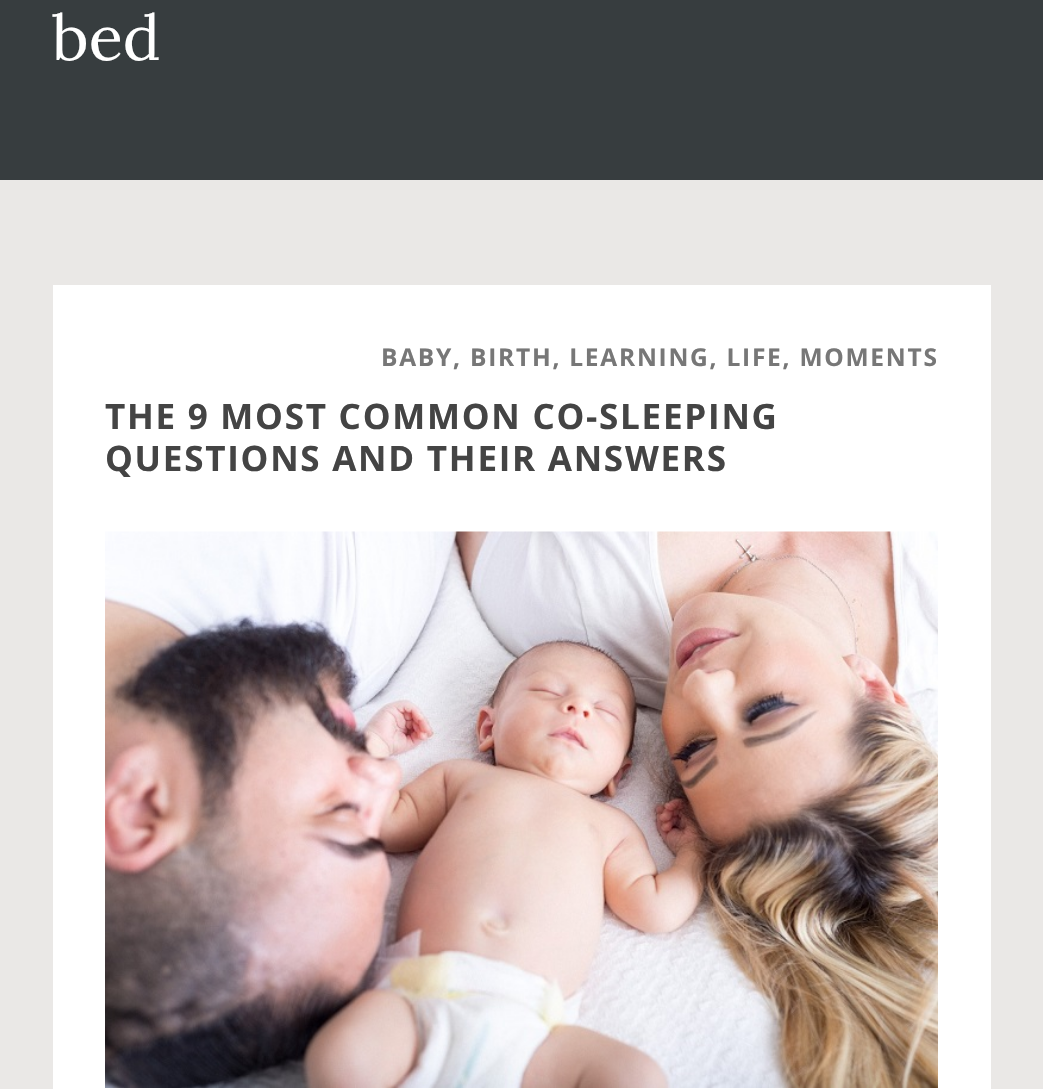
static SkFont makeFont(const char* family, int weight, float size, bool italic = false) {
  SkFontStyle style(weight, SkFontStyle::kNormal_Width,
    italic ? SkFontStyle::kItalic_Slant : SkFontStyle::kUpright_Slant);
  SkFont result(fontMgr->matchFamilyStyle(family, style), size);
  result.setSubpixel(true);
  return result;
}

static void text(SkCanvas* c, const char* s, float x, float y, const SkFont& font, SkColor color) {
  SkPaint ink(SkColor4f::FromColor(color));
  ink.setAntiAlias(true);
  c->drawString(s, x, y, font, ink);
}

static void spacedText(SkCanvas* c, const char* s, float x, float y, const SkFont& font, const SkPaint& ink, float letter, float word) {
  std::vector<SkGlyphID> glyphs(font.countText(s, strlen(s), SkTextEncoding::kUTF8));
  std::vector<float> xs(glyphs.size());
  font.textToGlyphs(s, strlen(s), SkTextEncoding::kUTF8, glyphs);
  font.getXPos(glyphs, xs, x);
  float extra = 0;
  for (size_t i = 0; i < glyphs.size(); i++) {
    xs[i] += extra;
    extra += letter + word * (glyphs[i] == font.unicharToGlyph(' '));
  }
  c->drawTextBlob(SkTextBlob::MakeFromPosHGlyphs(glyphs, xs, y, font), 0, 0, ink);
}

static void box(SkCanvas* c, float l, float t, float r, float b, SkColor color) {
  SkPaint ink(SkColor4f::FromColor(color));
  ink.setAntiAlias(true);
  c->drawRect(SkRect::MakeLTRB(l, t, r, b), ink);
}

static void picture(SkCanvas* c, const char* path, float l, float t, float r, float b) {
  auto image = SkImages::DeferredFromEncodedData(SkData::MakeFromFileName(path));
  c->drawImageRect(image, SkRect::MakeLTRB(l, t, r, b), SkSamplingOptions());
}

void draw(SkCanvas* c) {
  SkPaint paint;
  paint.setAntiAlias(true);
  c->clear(0xffeae8e6);
  box(c, 0, 0, 1043, 180, 0xff373d3f);
  SkFont face1 = makeFont("Lora", 400, 63);
  text(c, "bed", 52, 60, face1, 0xffffffff);
  box(c, 53, 285, 991, 1089, 0xffffffff);
  SkFont face2 = makeFont("Open Sans", 700, 24.5f);
  paint.setColor(0xff777777);
  spacedText(c, "BABY, BIRTH, LEARNING, LIFE, MOMENTS", 381, 366, face2, paint, 1.75f, 0);
  SkFont face3 = makeFont("Open Sans", 700, 35);
  paint.setColor(0xff444444);
  spacedText(c, "THE 9 MOST COMMON CO-SLEEPING", 105, 429, face3, paint, 1.75f, 0);
  spacedText(c, "QUESTIONS AND THEIR ANSWERS", 105, 471, face3, paint, 1.75f, 0);
  picture(c, "img_01.png", 105, 531, 938, 1088);
}
